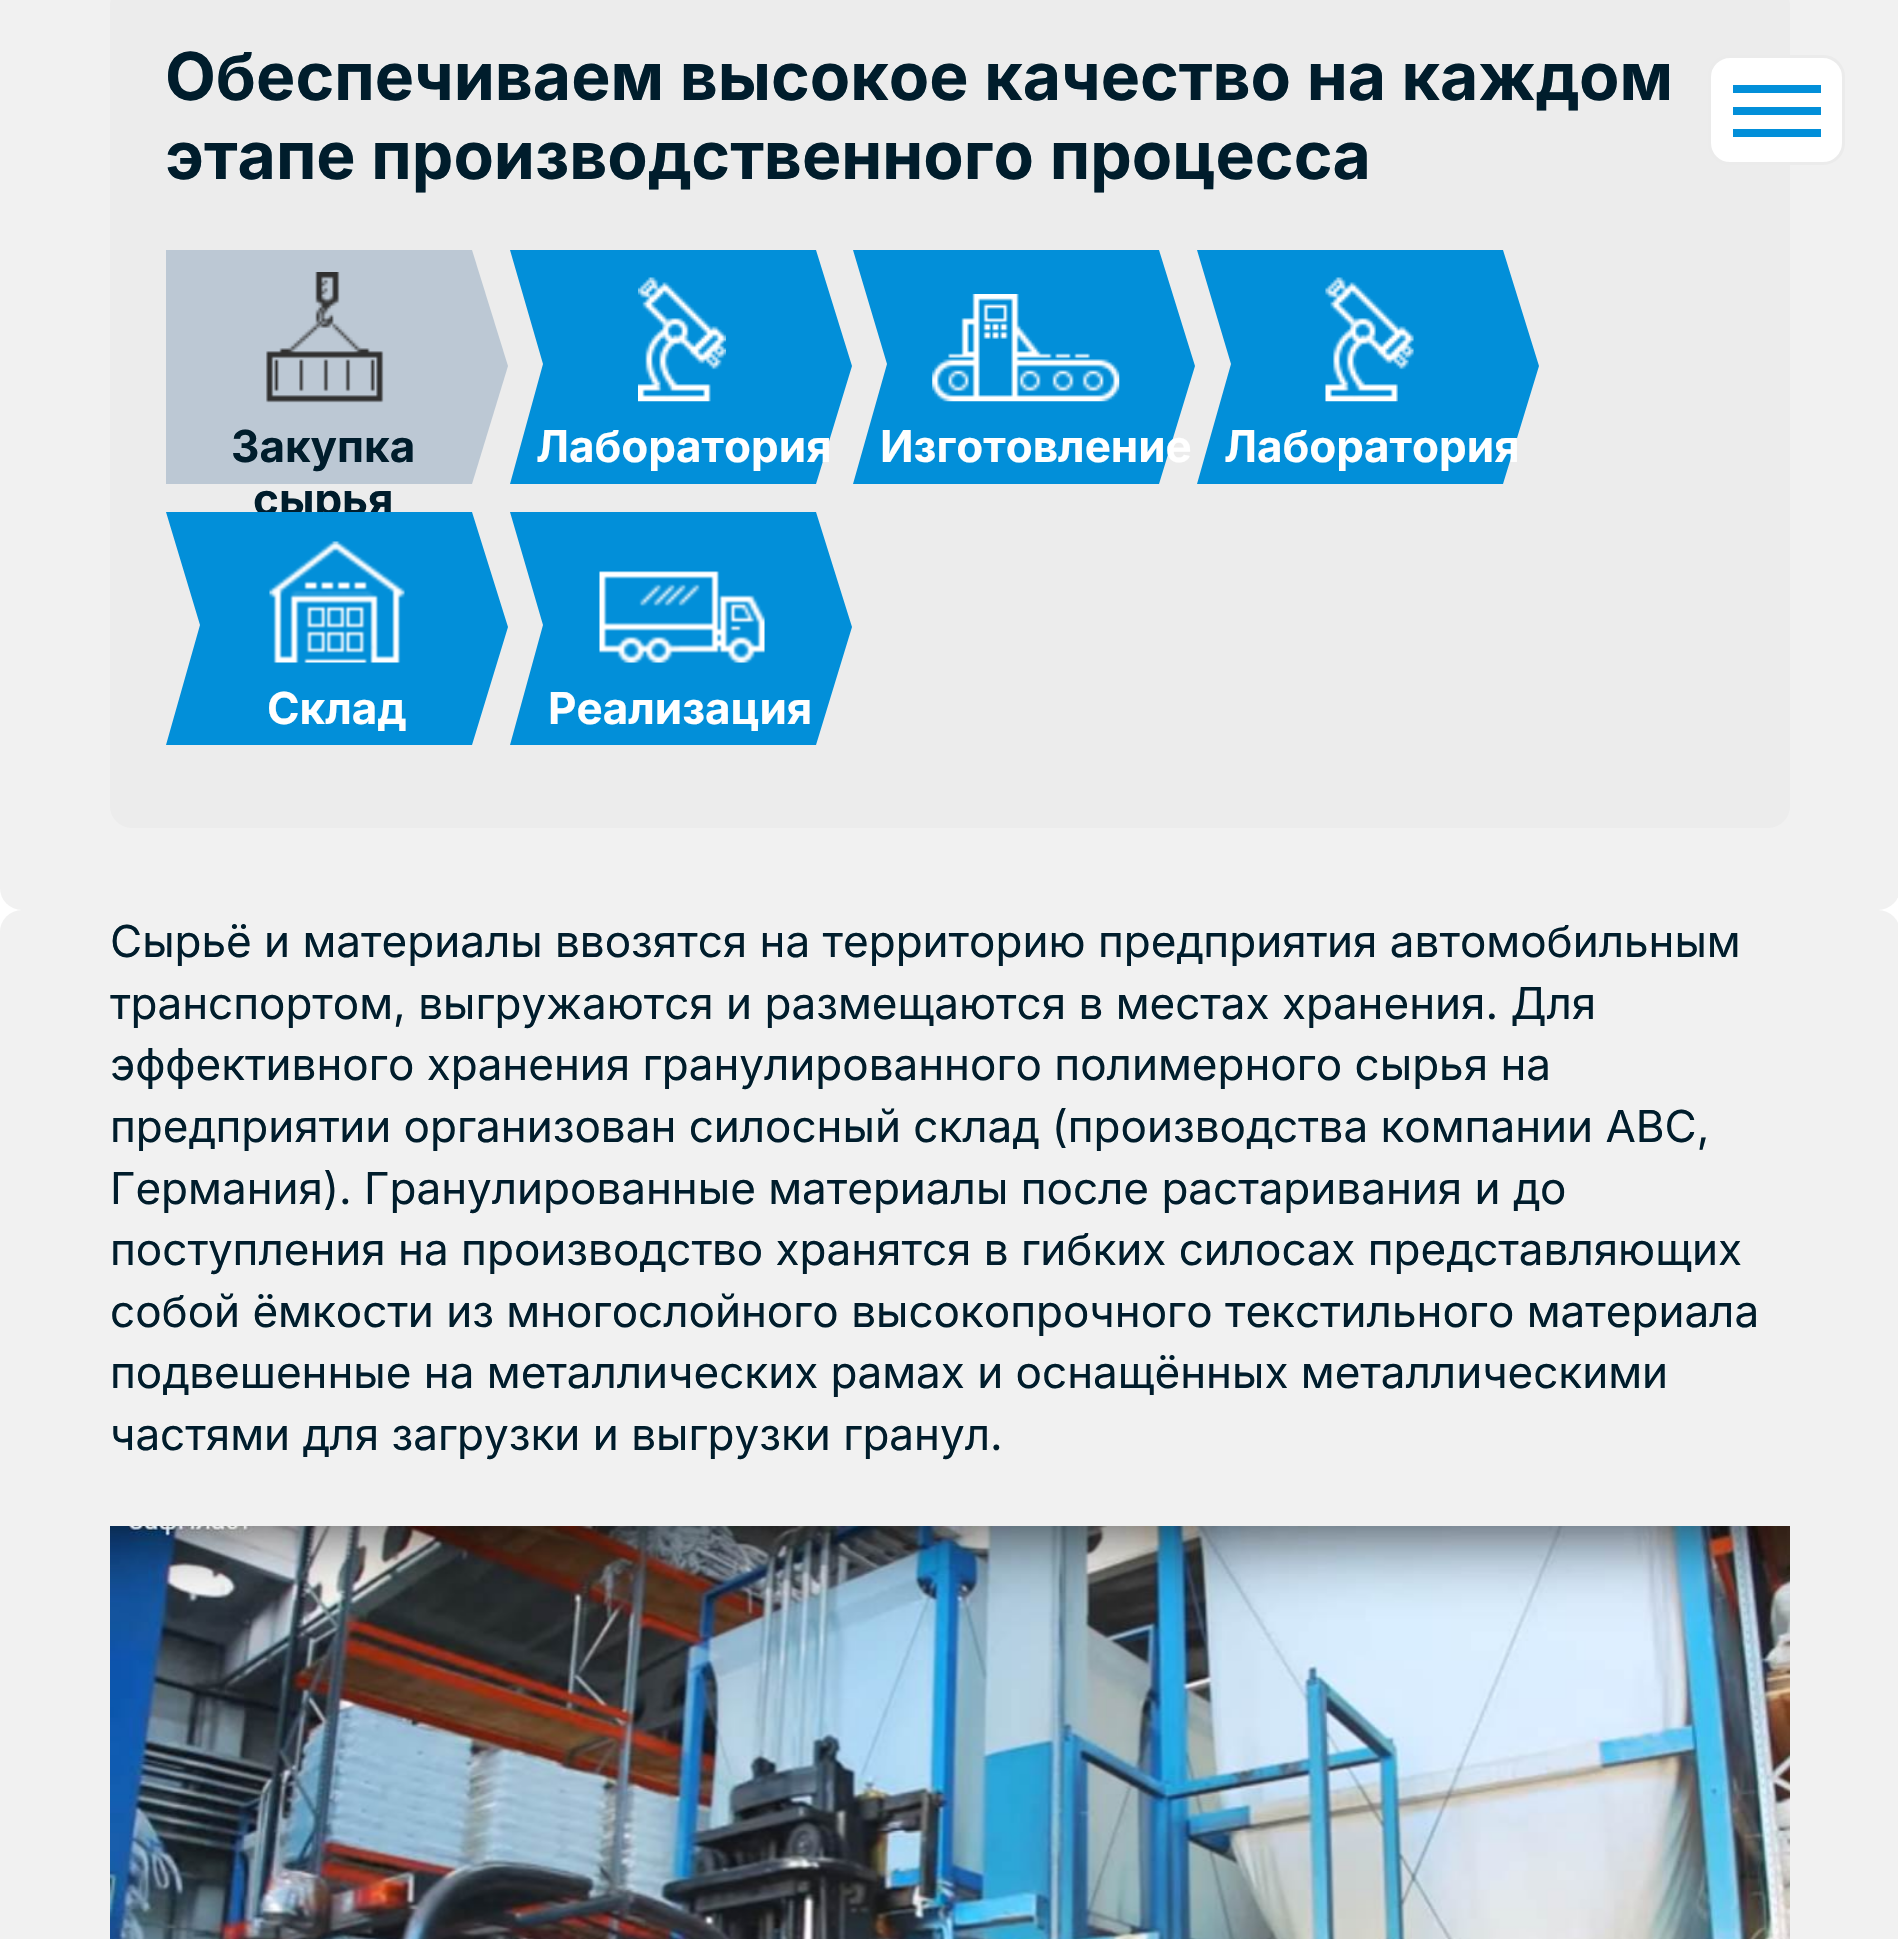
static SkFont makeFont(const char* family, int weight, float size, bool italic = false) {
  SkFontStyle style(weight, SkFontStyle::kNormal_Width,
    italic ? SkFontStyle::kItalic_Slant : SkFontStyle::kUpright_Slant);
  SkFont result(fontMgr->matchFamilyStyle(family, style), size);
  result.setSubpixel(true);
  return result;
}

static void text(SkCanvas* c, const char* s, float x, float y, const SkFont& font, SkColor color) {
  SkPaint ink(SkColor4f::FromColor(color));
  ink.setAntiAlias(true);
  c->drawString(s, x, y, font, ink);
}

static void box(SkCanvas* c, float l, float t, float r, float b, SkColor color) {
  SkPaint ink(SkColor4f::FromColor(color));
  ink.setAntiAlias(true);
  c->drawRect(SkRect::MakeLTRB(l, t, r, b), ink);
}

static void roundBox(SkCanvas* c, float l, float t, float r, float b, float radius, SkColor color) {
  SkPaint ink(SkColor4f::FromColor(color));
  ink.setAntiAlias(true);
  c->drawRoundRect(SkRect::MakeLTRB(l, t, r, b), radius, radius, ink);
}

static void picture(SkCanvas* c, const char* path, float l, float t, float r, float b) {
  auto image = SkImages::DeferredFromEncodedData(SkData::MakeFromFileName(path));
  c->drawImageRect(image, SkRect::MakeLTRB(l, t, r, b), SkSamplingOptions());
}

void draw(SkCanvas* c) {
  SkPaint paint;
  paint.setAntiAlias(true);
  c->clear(0xffffffff);
  roundBox(c, 0, -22, 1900, 910, 22, 0xfff1f1f1);
  roundBox(c, 110, -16, 1790, 828, 22, 0xffececec);
  SkFont face1 = makeFont("Inter", 700, 66);
  text(c, "Обеспечиваем высокое качество на каждом", 165, 100, face1, 0xff001d2c);
  text(c, "этапе производственного процесса", 165, 179, face1, 0xff001d2c);
  paint.setColor(0xffbcc8d4);
  c->drawPath(SkPathBuilder().moveTo(166, 250).lineTo(472, 250).lineTo(508, 366).lineTo(472, 484).lineTo(166, 484).close().detach(), paint);
  picture(c, "img_01.png", 266, 272, 384, 403);
  SkFont face2 = makeFont("Inter", 700, 44);
  text(c, "Закупка", 231, 462, face2, 0xff001d2c);
  text(c, "сырья", 253, 515, face2, 0xff001d2c);
  paint.setColor(0xff028fd9);
  c->drawPath(SkPathBuilder().moveTo(510, 250).lineTo(816, 250).lineTo(852, 366).lineTo(816, 484).lineTo(510, 484).lineTo(543, 364).close().detach(), paint);
  picture(c, "img_02.png", 638, 277, 726, 402);
  text(c, "Лаборатория", 536, 462, face2, 0xffffffff);
  c->drawPath(SkPathBuilder().moveTo(853, 250).lineTo(1159, 250).lineTo(1195, 366).lineTo(1159, 484).lineTo(853, 484).lineTo(887, 364).close().detach(), paint);
  picture(c, "img_03.png", 932, 294, 1120, 402);
  text(c, "Изготовление", 880, 462, face2, 0xffffffff);
  c->drawPath(SkPathBuilder().moveTo(1197, 250).lineTo(1503, 250).lineTo(1539, 366).lineTo(1503, 484).lineTo(1197, 484).lineTo(1231, 364).close().detach(), paint);
  picture(c, "img_04.png", 1325, 277, 1414, 402);
  text(c, "Лаборатория", 1224, 462, face2, 0xffffffff);
  c->drawPath(SkPathBuilder().moveTo(166, 512).lineTo(472, 512).lineTo(508, 627).lineTo(472, 745).lineTo(166, 745).lineTo(200, 625).close().detach(), paint);
  picture(c, "img_05.png", 269, 541, 405, 663);
  text(c, "Склад", 267, 724, face2, 0xffffffff);
  c->drawPath(SkPathBuilder().moveTo(510, 512).lineTo(816, 512).lineTo(852, 627).lineTo(816, 745).lineTo(510, 745).lineTo(543, 625).close().detach(), paint);
  picture(c, "img_06.png", 599, 571, 765, 663);
  text(c, "Реализация", 548, 724, face2, 0xffffffff);
  roundBox(c, 0, 910, 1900, 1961, 22, 0xfff1f1f1);
  SkFont face3 = makeFont("Inter", 400, 44);
  text(c, "Сырьё и материалы ввозятся на территорию предприятия автомобильным", 110, 957, face3, 0xff001d2c);
  text(c, "транспортом, выгружаются и размещаются в местах хранения. Для", 110, 1019, face3, 0xff001d2c);
  text(c, "эффективного хранения гранулированного полимерного сырья на", 110, 1080, face3, 0xff001d2c);
  text(c, "предприятии организован силосный склад (производства компании АВС,", 110, 1142, face3, 0xff001d2c);
  text(c, "Германия). Гранулированные материалы после растаривания и до", 110, 1204, face3, 0xff001d2c);
  text(c, "поступления на производство хранятся в гибких силосах представляющих", 110, 1265, face3, 0xff001d2c);
  text(c, "собой ёмкости из многослойного высокопрочного текстильного материала", 110, 1327, face3, 0xff001d2c);
  text(c, "подвешенные на металлических рамах и оснащённых металлическими", 110, 1388, face3, 0xff001d2c);
  text(c, "частями для загрузки и выгрузки гранул.", 110, 1450, face3, 0xff001d2c);
  picture(c, "img_07.png", 110, 1526, 1790, 1939);
  paint.setColor(0xffffffff);
  c->drawRoundRect(SkRect::MakeLTRB(1709.5f, 56.5f, 1843.5f, 163.5f), 20.5f, 20.5f, paint);
  paint.setStyle(SkPaint::kStroke_Style);
  paint.setStrokeWidth(3);
  paint.setColor(0xffebebeb);
  c->drawRoundRect(SkRect::MakeLTRB(1709.5f, 56.5f, 1843.5f, 163.5f), 20.5f, 20.5f, paint);
  box(c, 1733, 107, 1821, 115, 0xff028fd9);
  box(c, 1733, 85, 1821, 93, 0xff028fd9);
  box(c, 1733, 129, 1821, 137, 0xff028fd9);
}
